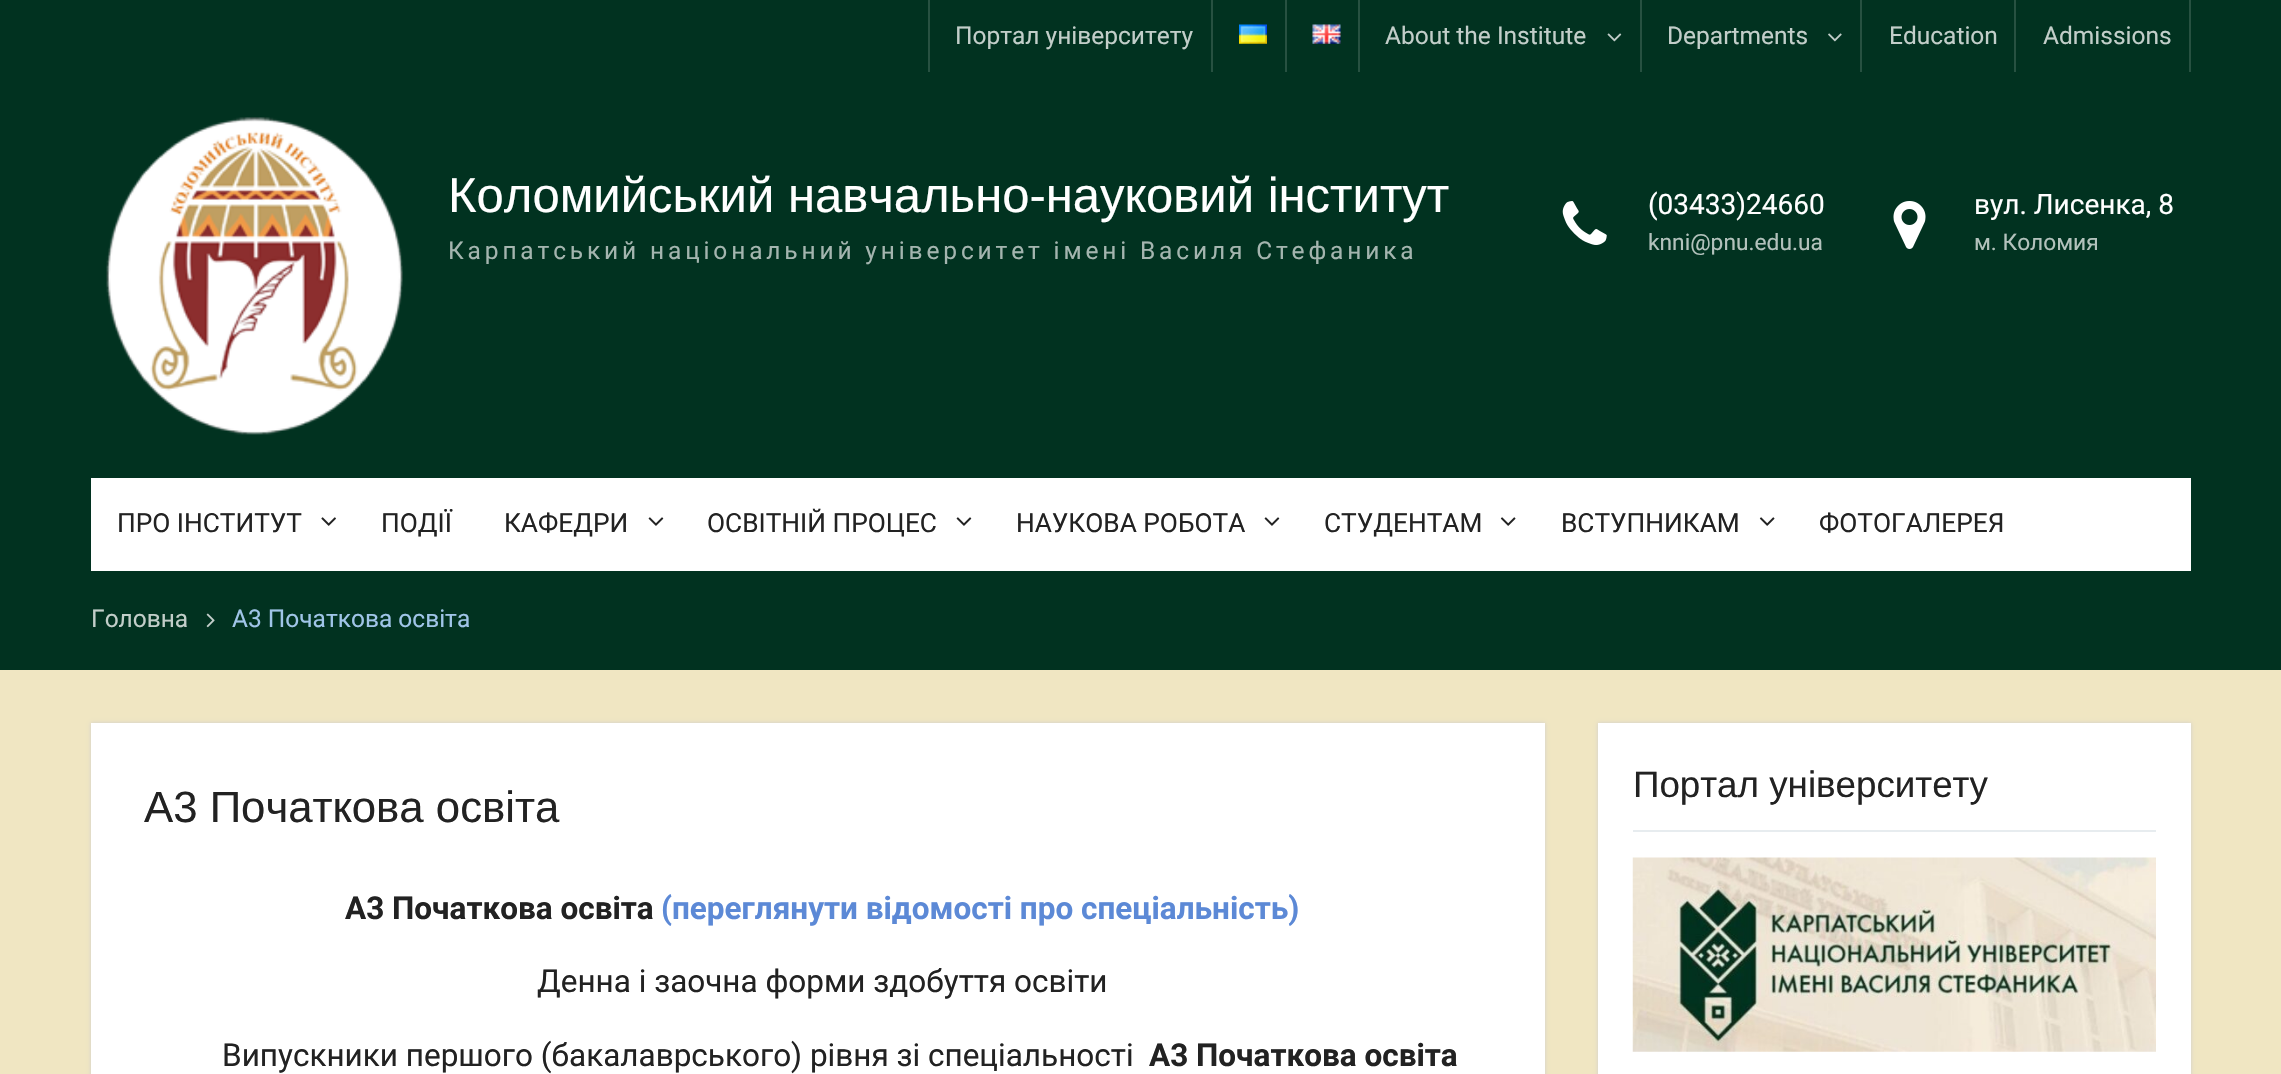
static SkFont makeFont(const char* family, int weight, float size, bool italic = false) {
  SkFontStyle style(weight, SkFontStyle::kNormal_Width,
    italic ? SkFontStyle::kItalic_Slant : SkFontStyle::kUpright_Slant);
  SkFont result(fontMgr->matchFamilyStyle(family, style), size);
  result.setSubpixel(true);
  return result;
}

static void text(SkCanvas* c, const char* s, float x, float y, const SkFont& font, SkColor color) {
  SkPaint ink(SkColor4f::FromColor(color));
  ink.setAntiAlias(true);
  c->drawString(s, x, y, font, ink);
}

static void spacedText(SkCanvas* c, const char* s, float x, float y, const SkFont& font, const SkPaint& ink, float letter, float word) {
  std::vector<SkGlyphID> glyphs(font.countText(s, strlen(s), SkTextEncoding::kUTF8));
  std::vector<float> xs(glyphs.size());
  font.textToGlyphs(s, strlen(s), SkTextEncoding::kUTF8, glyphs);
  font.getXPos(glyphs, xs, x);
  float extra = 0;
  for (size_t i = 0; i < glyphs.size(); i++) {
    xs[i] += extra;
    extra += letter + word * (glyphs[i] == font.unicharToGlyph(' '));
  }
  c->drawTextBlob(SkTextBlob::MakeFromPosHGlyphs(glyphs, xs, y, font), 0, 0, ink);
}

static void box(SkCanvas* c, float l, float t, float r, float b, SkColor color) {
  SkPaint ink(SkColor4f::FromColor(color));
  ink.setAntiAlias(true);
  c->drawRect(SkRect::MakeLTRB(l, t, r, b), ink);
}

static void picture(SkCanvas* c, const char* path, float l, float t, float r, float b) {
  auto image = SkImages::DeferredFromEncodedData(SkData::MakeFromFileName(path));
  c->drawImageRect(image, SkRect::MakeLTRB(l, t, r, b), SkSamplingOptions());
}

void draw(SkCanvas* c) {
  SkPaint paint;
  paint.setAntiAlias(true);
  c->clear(0xfff0e6c2);
  box(c, 0, 0, 2281, 670, 0xff013220);
  box(c, 1211, 0, 1213, 72, 0xff275141);
  box(c, 928, 0, 930, 72, 0xff275141);
  SkFont face1 = makeFont("Roboto", 400, 24.5f);
  text(c, "Портал університету", 955, 44, face1, 0xffc2cec9);
  box(c, 1285, 0, 1287, 72, 0xff275141);
  picture(c, "img_01.png", 1239, 24, 1267, 44);
  box(c, 1358, 0, 1360, 72, 0xff275141);
  picture(c, "img_02.png", 1312, 24, 1341, 44);
  box(c, 1640, 0, 1642, 72, 0xff275141);
  text(c, "About the Institute", 1385, 44, face1, 0xffc2cec9);
  picture(c, "img_03.png", 1607, 33, 1622, 42);
  box(c, 1860, 0, 1862, 72, 0xff275141);
  text(c, "Departments", 1667, 44, face1, 0xffc2cec9);
  picture(c, "img_04.png", 1828, 33, 1842, 42);
  box(c, 2014, 0, 2016, 72, 0xff275141);
  text(c, "Education", 1889, 44, face1, 0xffc2cec9);
  box(c, 2189, 0, 2191, 72, 0xff275141);
  text(c, "Admissions", 2043, 44, face1, 0xffc2cec9);
  picture(c, "img_05.png", 106, 117, 403, 435);
  SkFont face2 = makeFont("Liberation Sans", 400, 49);
  text(c, "Коломийський навчально-науковий інститут", 448, 212, face2, 0xffffffff);
  paint.setColor(0xffa4b5af);
  spacedText(c, "Карпатський національний університет імені Василя Стефаника", 448, 259, face1, paint, 3.85f, 0);
  picture(c, "img_06.png", 1562, 201, 1607, 245);
  SkFont face3 = makeFont("Roboto", 400, 28);
  text(c, "(03433)24660", 1648, 214, face3, 0xffffffff);
  SkFont face4 = makeFont("Roboto", 400, 22.75f);
  text(c, "knni@pnu.edu.ua", 1648, 250, face4, 0xffb3c2bc);
  picture(c, "img_07.png", 1893, 201, 1926, 249);
  text(c, "вул. Лисенка, 8", 1974, 214, face3, 0xffffffff);
  text(c, "м. Коломия", 1974, 250, face4, 0xffb3c2bc);
  box(c, 91, 478, 2191, 571, 0xffffffff);
  SkFont face5 = makeFont("Roboto", 400, 26.25f);
  text(c, "ПРО ІНСТИТУТ", 117, 532, face5, 0xff222222);
  picture(c, "img_08.png", 321, 517, 336, 526);
  text(c, "ПОДІЇ", 381, 532, face5, 0xff222222);
  text(c, "КАФЕДРИ", 504, 532, face5, 0xff222222);
  picture(c, "img_09.png", 648, 517, 664, 526);
  text(c, "ОСВІТНІЙ ПРОЦЕС", 707, 532, face5, 0xff222222);
  picture(c, "img_09.png", 956, 517, 972, 526);
  text(c, "НАУКОВА РОБОТА", 1016, 532, face5, 0xff222222);
  picture(c, "img_09.png", 1264, 517, 1280, 526);
  text(c, "СТУДЕНТАМ", 1324, 532, face5, 0xff222222);
  picture(c, "img_10.png", 1500, 517, 1516, 526);
  text(c, "ВСТУПНИКАМ", 1561, 532, face5, 0xff222222);
  picture(c, "img_10.png", 1759, 517, 1775, 526);
  text(c, "ФОТОГАЛЕРЕЯ", 1819, 532, face5, 0xff222222);
  text(c, "Головна", 91, 627, face1, 0xffc2cec9);
  picture(c, "img_11.png", 206, 613, 215, 628);
  text(c, "А3 Початкова освіта", 232, 627, face1, 0xffa0c5e8);
  paint.setColor(0xffcfcfcf);
  paint.setMaskFilter(SkMaskFilter::MakeBlur(kNormal_SkBlurStyle, 2));
  c->drawRect(SkRect::MakeLTRB(91, 723, 1545, 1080), paint);
  paint.setMaskFilter(nullptr);
  box(c, 91, 723, 1545, 1074, 0xffffffff);
  SkFont face6 = makeFont("Liberation Sans", 400, 43.75f);
  text(c, "А3 Початкова освіта", 144, 822, face6, 0xff222222);
  SkFont face7 = makeFont("Roboto", 700, 31.5f);
  text(c, "А3 Початкова освіта", 345, 919, face7, 0xff222222);
  text(c, "(переглянути відомості про спеціальність)", 661, 919, face7, 0xff5c89d6);
  SkFont face8 = makeFont("Roboto", 400, 31.5f);
  text(c, "Денна і заочна форми здобуття освіти", 537, 992, face8, 0xff222222);
  text(c, "Випускники першого (бакалаврського) рівня зі спеціальності", 222, 1066, face8, 0xff222222);
  text(c, "А3 Початкова освіта", 1149, 1066, face7, 0xff222222);
  paint.setMaskFilter(SkMaskFilter::MakeBlur(kNormal_SkBlurStyle, 2));
  c->drawRect(SkRect::MakeLTRB(1598, 723, 2191, 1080), paint);
  paint.setMaskFilter(nullptr);
  box(c, 1598, 723, 2191, 1074, 0xffffffff);
  box(c, 1633, 830, 2156, 832, 0xffe7ecef);
  SkFont face9 = makeFont("Liberation Sans", 400, 36.75f);
  text(c, "Портал університету", 1633, 797, face9, 0xff222222);
  picture(c, "img_12.png", 1632, 857, 2156, 1052);
}
